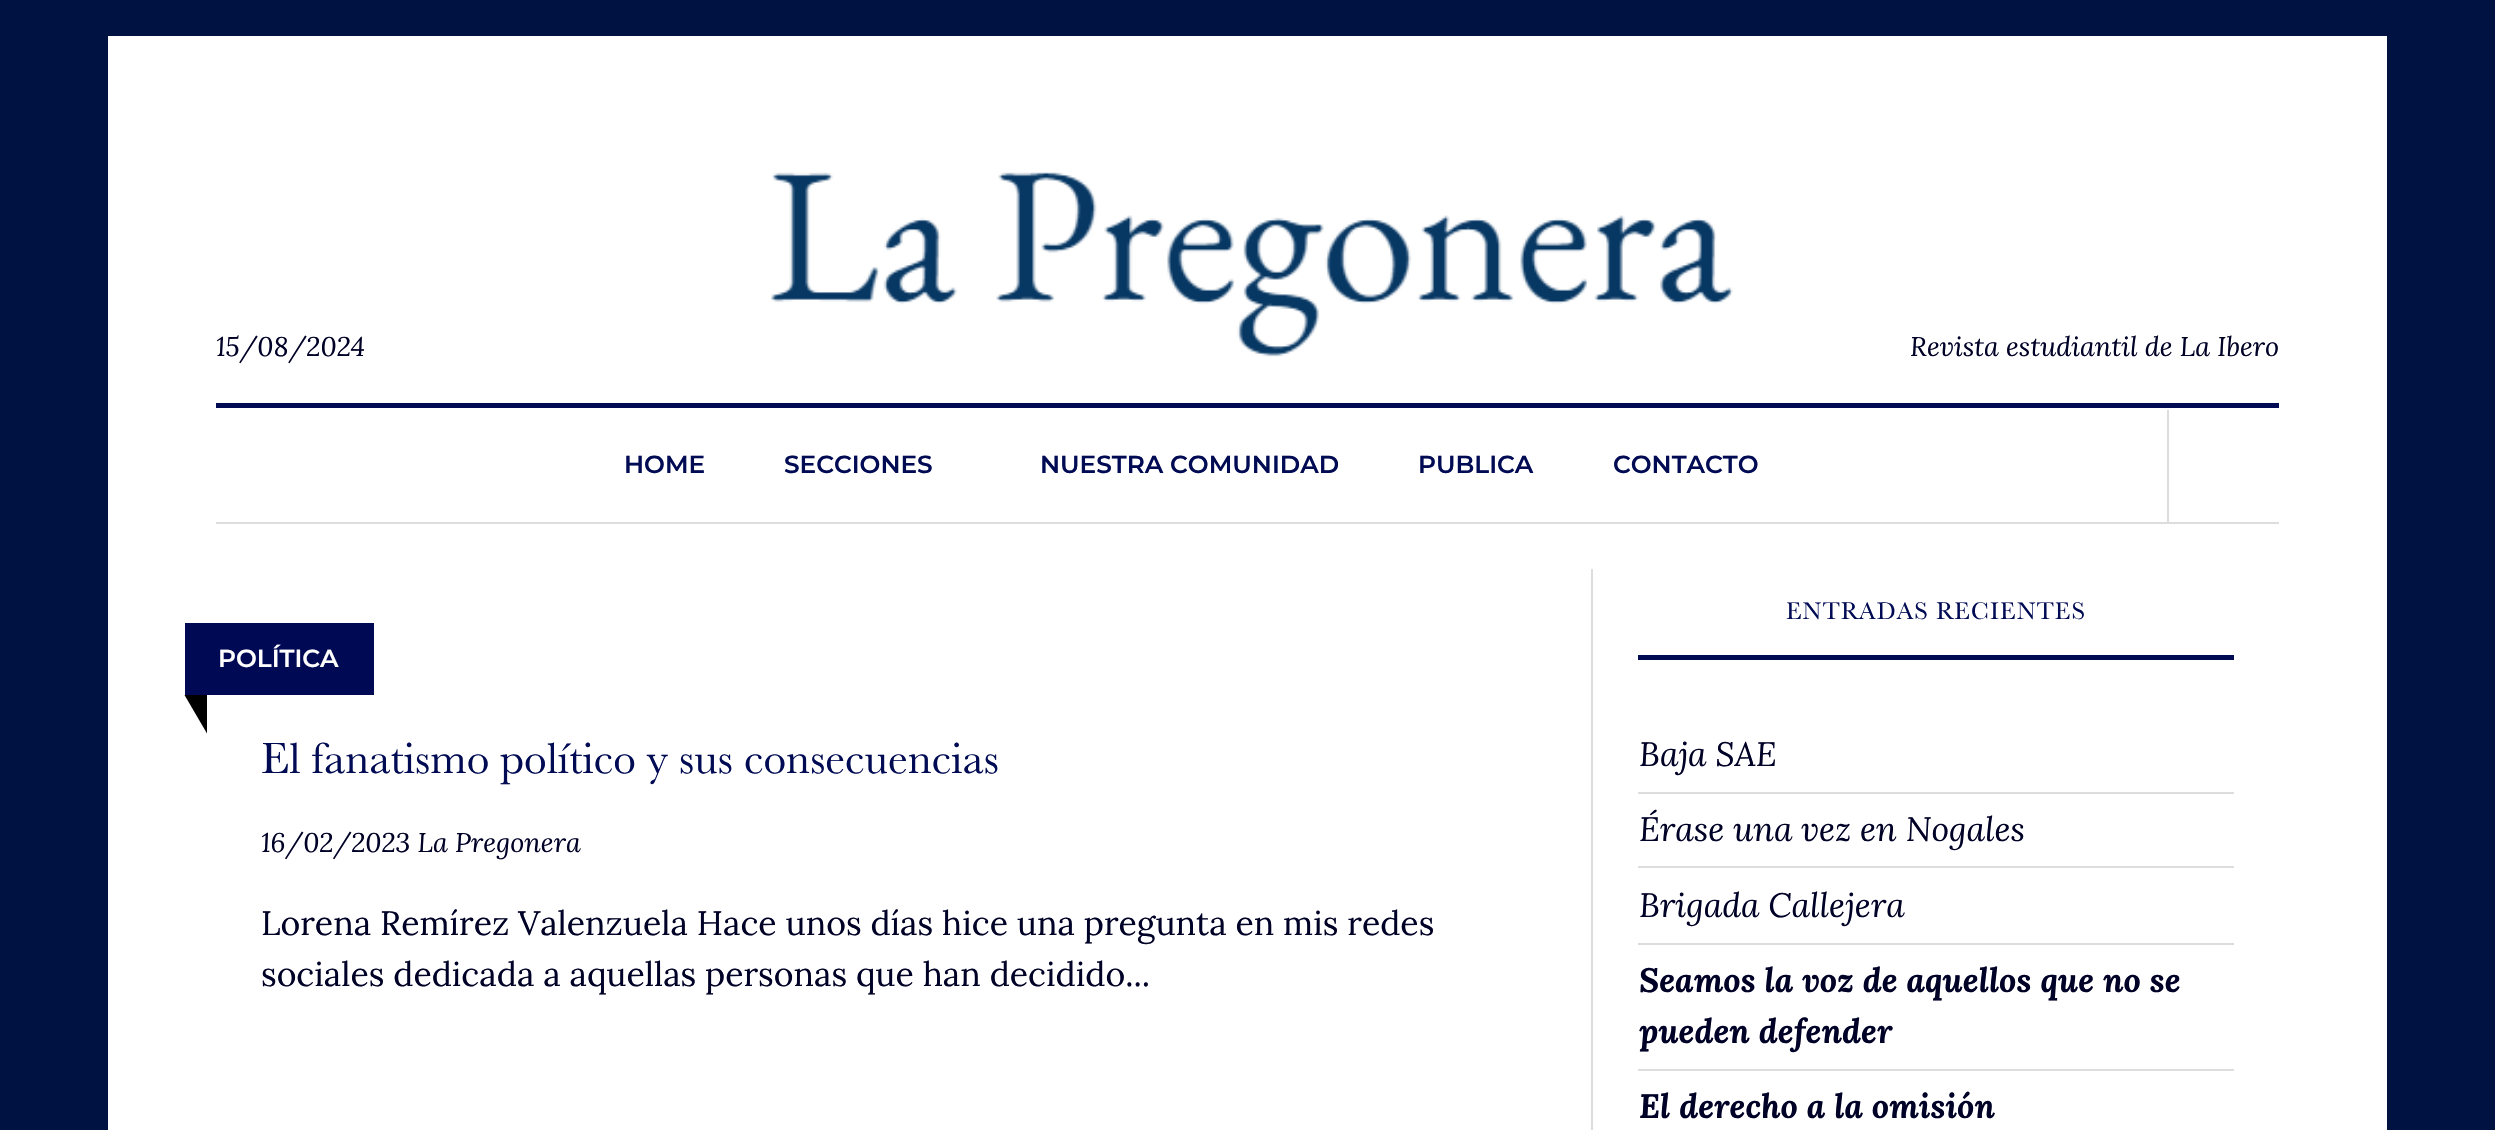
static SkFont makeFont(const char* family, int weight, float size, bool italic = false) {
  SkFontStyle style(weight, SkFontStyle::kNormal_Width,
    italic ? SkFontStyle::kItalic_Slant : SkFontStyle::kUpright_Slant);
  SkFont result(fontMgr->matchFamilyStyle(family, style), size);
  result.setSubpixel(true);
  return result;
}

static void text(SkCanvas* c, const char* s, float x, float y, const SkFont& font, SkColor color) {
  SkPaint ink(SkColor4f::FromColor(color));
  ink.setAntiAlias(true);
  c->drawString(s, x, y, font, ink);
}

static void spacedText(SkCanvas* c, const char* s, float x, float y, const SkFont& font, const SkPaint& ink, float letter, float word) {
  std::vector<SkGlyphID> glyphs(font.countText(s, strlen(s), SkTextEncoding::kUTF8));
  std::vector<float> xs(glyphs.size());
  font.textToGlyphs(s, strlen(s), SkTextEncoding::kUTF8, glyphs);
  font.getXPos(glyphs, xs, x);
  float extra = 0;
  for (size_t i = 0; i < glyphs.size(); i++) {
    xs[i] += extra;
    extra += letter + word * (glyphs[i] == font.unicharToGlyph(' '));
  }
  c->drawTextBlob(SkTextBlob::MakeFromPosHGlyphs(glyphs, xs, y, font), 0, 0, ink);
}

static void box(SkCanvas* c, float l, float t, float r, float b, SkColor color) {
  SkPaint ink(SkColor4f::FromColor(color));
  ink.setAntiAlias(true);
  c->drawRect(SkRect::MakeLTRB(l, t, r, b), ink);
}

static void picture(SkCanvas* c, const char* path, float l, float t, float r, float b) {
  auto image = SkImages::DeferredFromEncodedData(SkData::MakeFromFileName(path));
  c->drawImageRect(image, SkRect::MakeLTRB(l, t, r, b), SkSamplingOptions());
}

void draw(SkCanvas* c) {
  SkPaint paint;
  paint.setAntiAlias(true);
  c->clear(0xff001242);
  box(c, 108, 36, 2387, 1130, 0xffffffff);
  box(c, 216, 403, 2279, 408, 0xff000b54);
  picture(c, "img_01.png", 771, 172, 1733, 357);
  SkFont face1 = makeFont("Lora", 400, 27, true);
  text(c, "15/08/2024", 216, 356, face1, 0xff000126);
  text(c, "Revista estudiantil de La Ibero", 1910, 356, face1, 0xff000126);
  box(c, 216, 522, 2279, 524, 0xffdddddd);
  SkFont face2 = makeFont("Montserrat", 600, 24.75f);
  text(c, "HOME", 624, 473, face2, 0xff000b54);
  text(c, "SECCIONES", 784, 473, face2, 0xff000b54);
  text(c, "NUESTRA COMUNIDAD", 1040, 473, face2, 0xff000b54);
  text(c, "PUBLICA", 1418, 473, face2, 0xff000b54);
  text(c, "CONTACTO", 1613, 473, face2, 0xff000b54);
  box(c, 2167, 410, 2169, 522, 0xffdddddd);
  box(c, 185, 623, 374, 695, 0xff000954);
  text(c, "POLÍTICA", 218, 667, face2, 0xffffffff);
  paint.setColor(0xff000000);
  c->drawPath(SkPathBuilder().moveTo(207, 695).lineTo(207, 733.5f).lineTo(184.5f, 695).close().detach(), paint);
  SkFont face3 = makeFont("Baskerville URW", 400, 45);
  text(c, "El fanatismo político y sus consecuencias", 261, 773, face3, 0xff000b54);
  text(c, "16/02/2023 La Pregonera", 261, 852, face1, 0xff000126);
  SkFont face4 = makeFont("Lora", 400, 33.75f);
  text(c, "Lorena Remírez Valenzuela Hace unos días hice una pregunta en mis redes", 261, 935, face4, 0xff000126);
  text(c, "sociales dedicada a aquellas personas que han decidido...", 261, 986, face4, 0xff000126);
  box(c, 1591, 569, 1593, 1130, 0xffdddddd);
  box(c, 1638, 655, 2234, 660, 0xff000b54);
  SkFont face5 = makeFont("Baskerville URW", 400, 24.75f);
  paint.setColor(0xff000b54);
  spacedText(c, "ENTRADAS RECIENTES", 1786, 619, face5, paint, 1.1f, 0);
  box(c, 1638, 792, 2234, 794, 0xffdddddd);
  SkFont face6 = makeFont("Lora", 400, 33.75f, true);
  text(c, "Baja SAE", 1639, 766, face6, 0xff000126);
  box(c, 1638, 866, 2234, 868, 0xffdddddd);
  text(c, "Érase una vez en Nogales", 1639, 841, face6, 0xff000126);
  box(c, 1638, 943, 2234, 945, 0xffdddddd);
  text(c, "Brigada Callejera", 1639, 917, face6, 0xff000126);
  box(c, 1638, 1069, 2234, 1071, 0xffdddddd);
  SkFont face7 = makeFont("Lora", 700, 33.75f, true);
  text(c, "Seamos la voz de aquellos que no se", 1639, 992, face7, 0xff000126);
  text(c, "pueden defender", 1639, 1043, face7, 0xff000126);
  text(c, "El derecho a la omisión", 1639, 1118, face7, 0xff000126);
}
